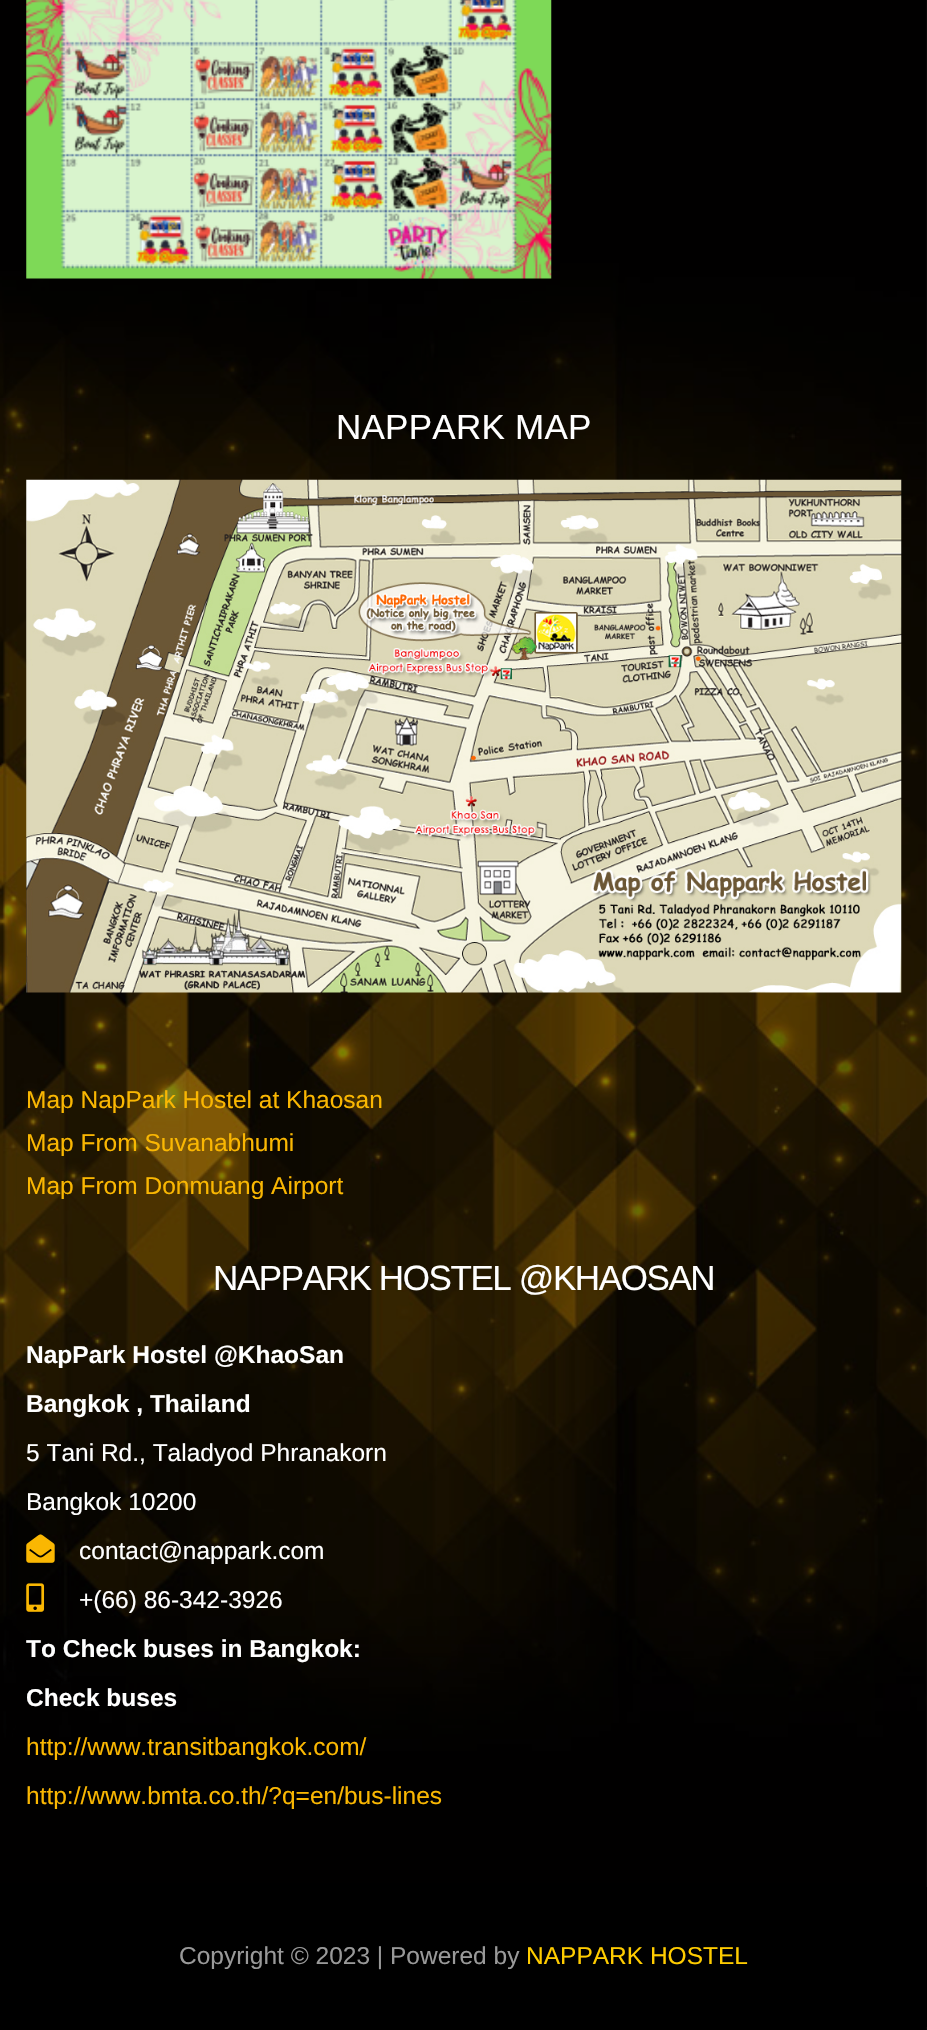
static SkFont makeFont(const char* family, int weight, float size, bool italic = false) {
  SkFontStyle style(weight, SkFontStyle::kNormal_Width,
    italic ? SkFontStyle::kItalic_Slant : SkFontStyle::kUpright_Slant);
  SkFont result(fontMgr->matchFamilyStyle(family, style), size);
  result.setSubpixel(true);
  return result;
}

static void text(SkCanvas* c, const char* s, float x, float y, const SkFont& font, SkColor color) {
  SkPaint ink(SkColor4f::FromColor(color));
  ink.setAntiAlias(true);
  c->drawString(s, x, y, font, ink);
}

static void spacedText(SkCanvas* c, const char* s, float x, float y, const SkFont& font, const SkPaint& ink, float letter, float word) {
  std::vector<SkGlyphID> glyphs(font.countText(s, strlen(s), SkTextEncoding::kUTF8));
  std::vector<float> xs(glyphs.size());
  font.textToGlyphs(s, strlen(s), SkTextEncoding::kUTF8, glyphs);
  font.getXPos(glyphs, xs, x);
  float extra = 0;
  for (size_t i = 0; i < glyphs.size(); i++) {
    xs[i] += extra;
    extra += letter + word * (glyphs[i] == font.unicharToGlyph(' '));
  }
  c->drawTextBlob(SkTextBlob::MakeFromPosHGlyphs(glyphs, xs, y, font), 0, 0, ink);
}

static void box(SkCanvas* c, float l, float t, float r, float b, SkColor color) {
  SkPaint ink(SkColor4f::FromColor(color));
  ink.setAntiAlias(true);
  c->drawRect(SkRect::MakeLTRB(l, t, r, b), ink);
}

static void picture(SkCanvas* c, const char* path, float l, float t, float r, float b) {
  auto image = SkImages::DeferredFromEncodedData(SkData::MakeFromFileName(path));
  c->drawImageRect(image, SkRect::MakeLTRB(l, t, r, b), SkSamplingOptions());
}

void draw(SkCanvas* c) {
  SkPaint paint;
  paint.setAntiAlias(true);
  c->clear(0xffffffff);
  picture(c, "img_01.png", 0, 0, 927, 2030);
  picture(c, "img_02.png", 26, 0, 552, 279);
  SkFont face1 = makeFont("Liberation Sans", 400, 35);
  paint.setColor(0xffffffff);
  spacedText(c, "NAPPARK MAP", 336, 439, face1, paint, 0.25f, 0);
  picture(c, "img_03.png", 26, 479, 902, 993);
  SkFont face2 = makeFont("Liberation Sans", 400, 24.5f);
  text(c, "Map NapPark Hostel at Khaosan", 26, 1108, face2, 0xfffab702);
  text(c, "Map From Suvanabhumi", 26, 1151, face2, 0xfffab702);
  text(c, "Map From Donmuang Airport", 26, 1194, face2, 0xfffab702);
  spacedText(c, "NAPPARK HOSTEL @KHAOSAN", 213, 1290, face1, paint, -1.4f, 0);
  SkFont face3 = makeFont("Liberation Sans", 700, 24.5f);
  text(c, "NapPark Hostel @KhaoSan", 26, 1363, face3, 0xffffffff);
  text(c, "Bangkok , Thailand", 26, 1412, face3, 0xffffffff);
  text(c, "5 Tani Rd., Taladyod Phranakorn", 26, 1461, face2, 0xffffffff);
  text(c, "Bangkok 10200", 26, 1510, face2, 0xffffffff);
  picture(c, "img_04.png", 26, 1534, 55, 1563);
  text(c, "contact@nappark.com", 79, 1559, face2, 0xffffffff);
  picture(c, "img_05.png", 26, 1583, 45, 1612);
  text(c, "+(66) 86-342-3926", 79, 1608, face2, 0xffffffff);
  text(c, "To Check buses in Bangkok:", 26, 1657, face3, 0xffffffff);
  text(c, "Check buses", 26, 1706, face3, 0xffffffff);
  text(c, "http://www.transitbangkok.com/", 26, 1755, face2, 0xfffab702);
  text(c, "http://www.bmta.co.th/?q=en/bus-lines", 26, 1804, face2, 0xfffab702);
  box(c, 926, 1887, 927, 2027, 0xff000000);
  text(c, "Copyright © 2023 | Powered by", 179, 1964, face2, 0xff999999);
  text(c, "NAPPARK HOSTEL", 526, 1964, face2, 0xffffcc00);
}
